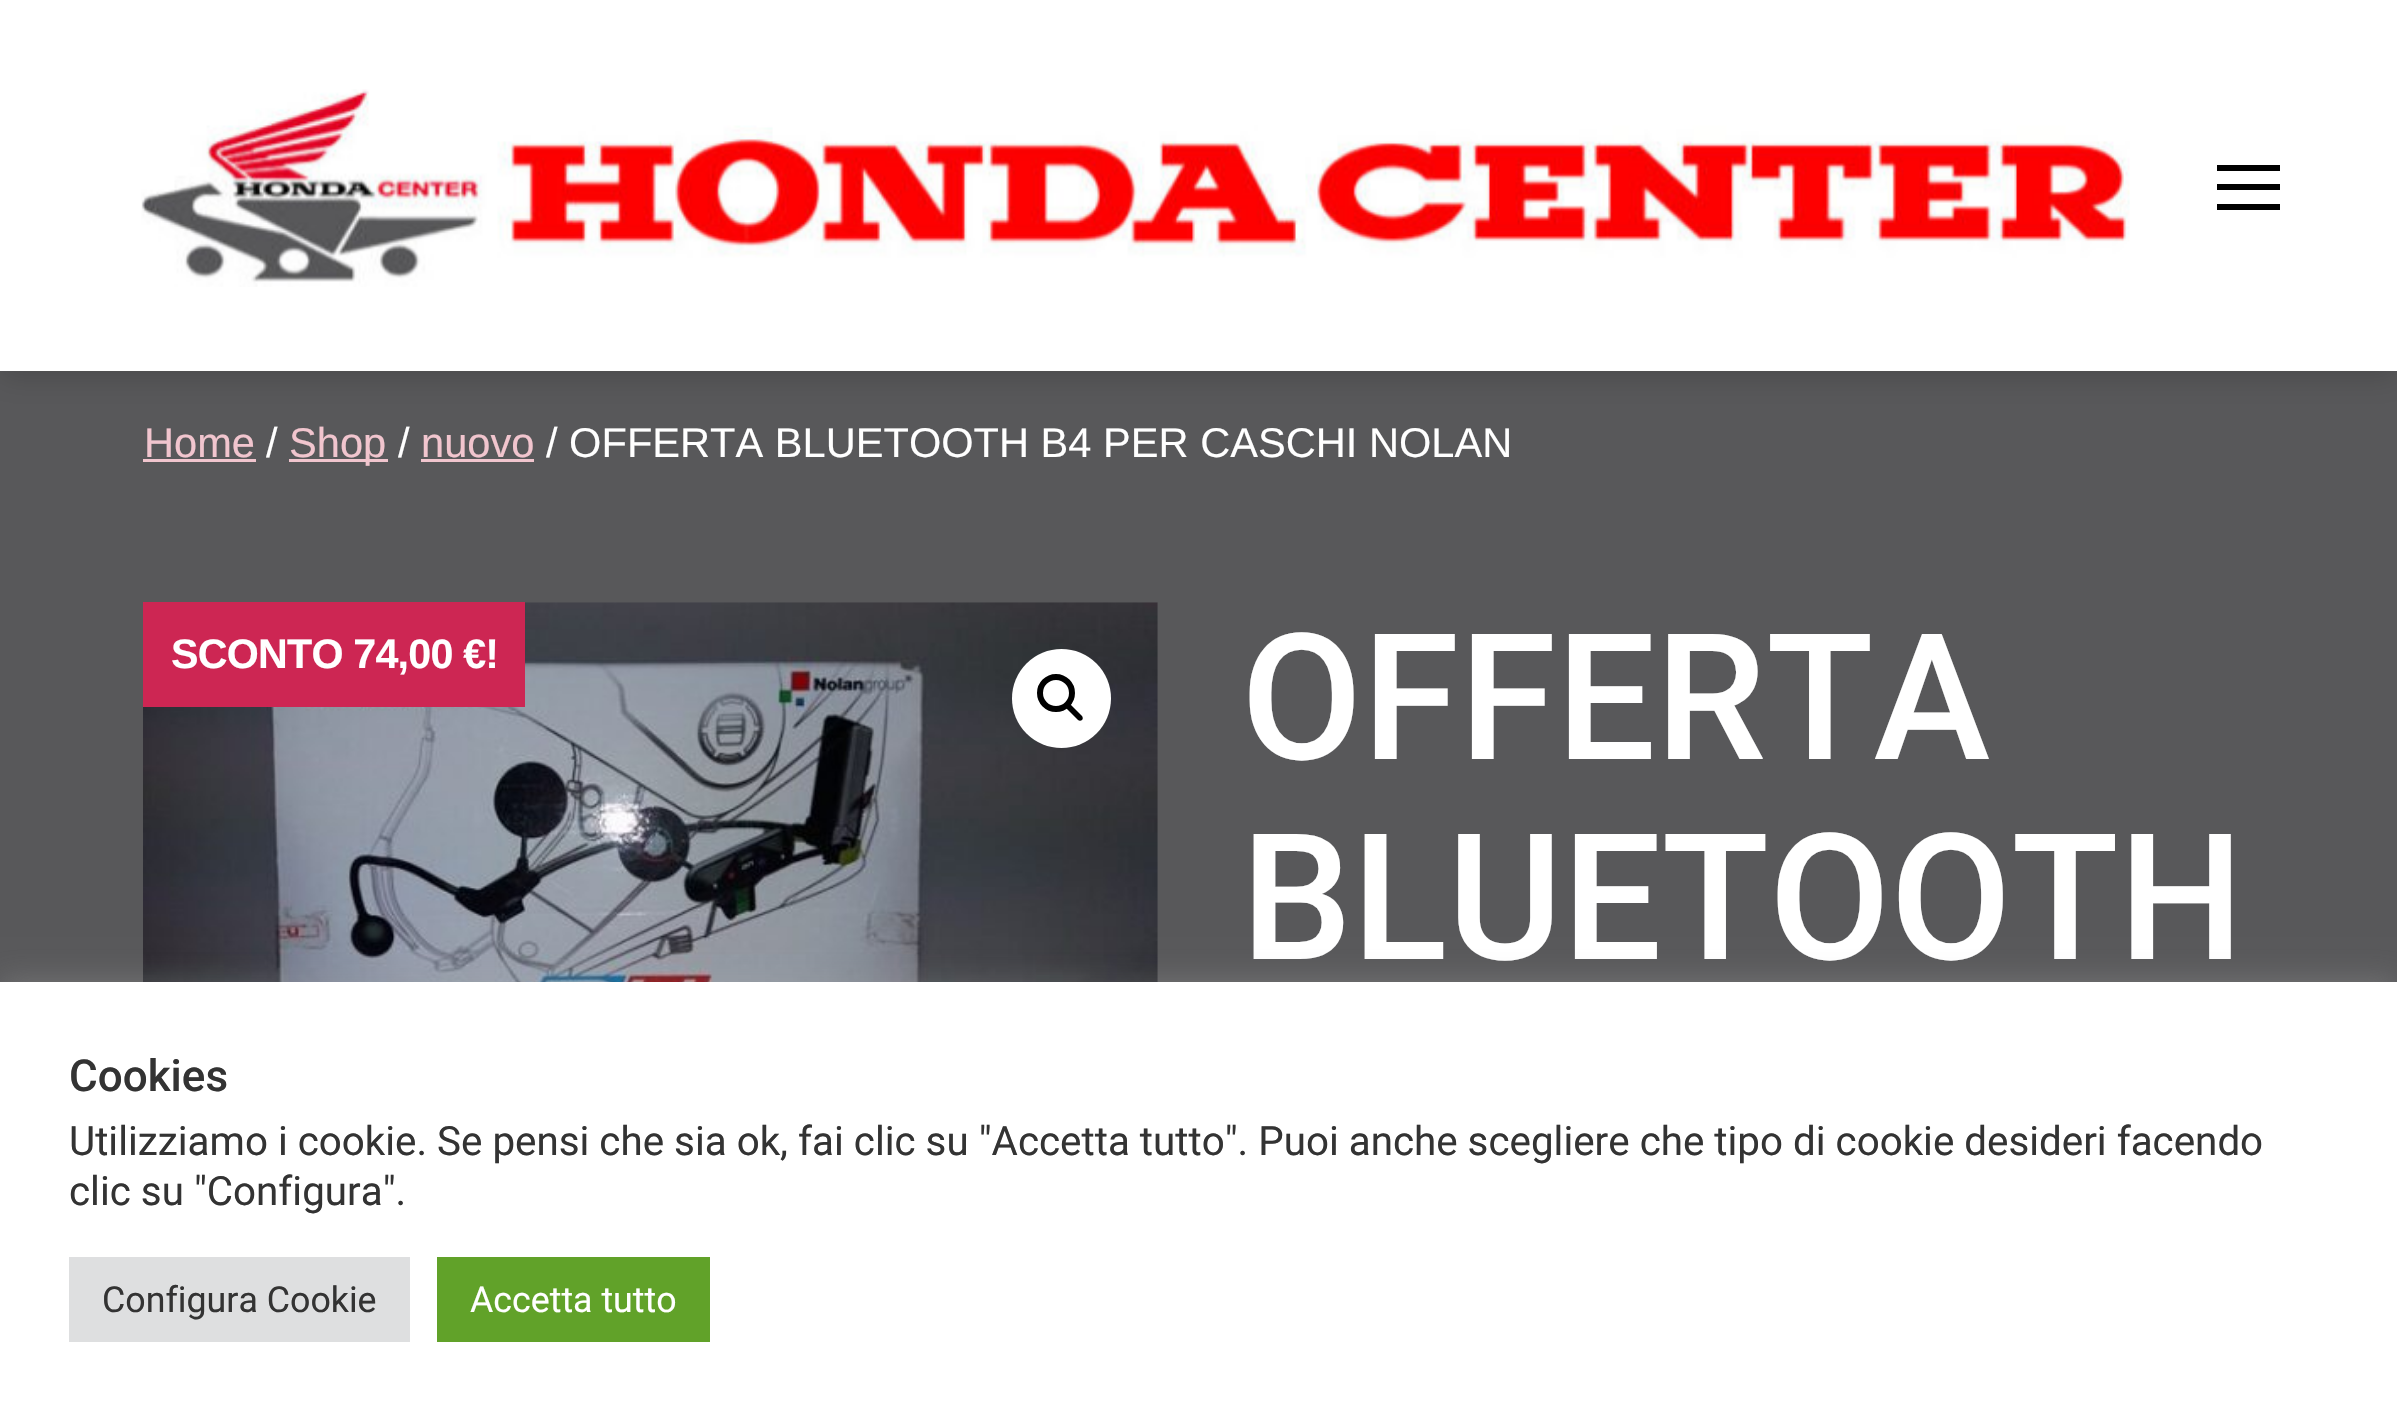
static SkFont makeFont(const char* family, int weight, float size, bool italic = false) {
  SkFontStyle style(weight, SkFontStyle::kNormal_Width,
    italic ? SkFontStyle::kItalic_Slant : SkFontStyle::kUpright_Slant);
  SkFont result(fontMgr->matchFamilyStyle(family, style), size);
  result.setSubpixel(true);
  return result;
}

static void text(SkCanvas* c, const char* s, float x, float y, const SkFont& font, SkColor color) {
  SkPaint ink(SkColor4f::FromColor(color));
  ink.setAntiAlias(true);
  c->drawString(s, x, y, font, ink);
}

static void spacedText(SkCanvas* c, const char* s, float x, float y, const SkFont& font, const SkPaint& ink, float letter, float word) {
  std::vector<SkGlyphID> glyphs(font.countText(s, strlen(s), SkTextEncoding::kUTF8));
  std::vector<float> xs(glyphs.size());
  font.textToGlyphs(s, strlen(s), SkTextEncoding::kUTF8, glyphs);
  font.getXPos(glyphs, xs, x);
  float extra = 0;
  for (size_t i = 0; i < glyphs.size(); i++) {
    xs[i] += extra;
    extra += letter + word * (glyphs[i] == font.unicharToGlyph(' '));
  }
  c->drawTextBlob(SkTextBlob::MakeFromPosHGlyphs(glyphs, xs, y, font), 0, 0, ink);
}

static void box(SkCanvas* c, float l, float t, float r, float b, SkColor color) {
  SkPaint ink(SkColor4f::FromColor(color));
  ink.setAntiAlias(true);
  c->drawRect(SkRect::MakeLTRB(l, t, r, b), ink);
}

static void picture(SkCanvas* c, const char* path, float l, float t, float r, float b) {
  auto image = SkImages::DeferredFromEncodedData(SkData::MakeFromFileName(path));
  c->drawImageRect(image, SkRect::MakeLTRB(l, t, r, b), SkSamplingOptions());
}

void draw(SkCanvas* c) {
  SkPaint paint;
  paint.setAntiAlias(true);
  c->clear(0xff58585a);
  paint.setColor(0x29000000);
  paint.setMaskFilter(SkMaskFilter::MakeBlur(kNormal_SkBlurStyle, 14));
  c->drawRect(SkRect::MakeLTRB(0, 6, 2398, 377), paint);
  paint.setMaskFilter(nullptr);
  box(c, 0, 0, 2397, 371, 0xffffffff);
  picture(c, "img_01.png", 141, 89, 2130, 287);
  box(c, 2217, 165, 2280, 171, 0xff000000);
  box(c, 2217, 204, 2280, 210, 0xff000000);
  box(c, 2217, 184, 2280, 190, 0xff000000);
  SkFont face1 = makeFont("Liberation Sans", 400, 41.6f);
  text(c, "Home", 144, 457, face1, 0xfff1c5ce);
  box(c, 143, 459, 256, 462, 0xfff1c5ce);
  text(c, "/", 266, 457, face1, 0xffffffff);
  box(c, 289, 459, 388, 462, 0xfff1c5ce);
  text(c, "Shop", 289, 457, face1, 0xfff1c5ce);
  text(c, "/", 398, 457, face1, 0xffffffff);
  text(c, "nuovo", 421, 457, face1, 0xfff1c5ce);
  box(c, 421, 459, 534, 462, 0xfff1c5ce);
  text(c, "/ OFFERTA BLUETOOTH B4 PER CASCHI NOLAN", 546, 457, face1, 0xffffffff);
  picture(c, "img_02.png", 143, 602, 1158, 982);
  paint.setColor(0xffffffff);
  c->drawCircle(1061.5f, 698.5f, 49.5f, paint);
  paint.setStyle(SkPaint::kStroke_Style);
  paint.setStrokeWidth(6);
  paint.setColor(0xff000000);
  c->drawCircle(1056, 693, 16, paint);
  paint.setStyle(SkPaint::kFill_Style);
  c->drawPath(SkPathBuilder().moveTo(1066.5f, 704.5f).cubicTo(1067.5f, 703.5f, 1069.5f, 703.5f, 1070.5f, 704.5f).lineTo(1082, 716).cubicTo(1083, 717.5f, 1083, 719, 1082, 720).cubicTo(1081, 721, 1079, 721, 1078, 720).lineTo(1066.5f, 708.5f).cubicTo(1065.5f, 707.5f, 1065.5f, 705.5f, 1066.5f, 704.5f).close().detach(), paint);
  SkFont face2 = makeFont("Roboto", 500, 176);
  text(c, "OFFERTA", 1241, 759, face2, 0xffffffff);
  text(c, "BLUETOOTH", 1241, 959, face2, 0xffffffff);
  box(c, 143, 602, 525, 707, 0xffcd2653);
  SkFont face3 = makeFont("Liberation Sans", 700, 41.25f);
  paint.setColor(0xffffffff);
  spacedText(c, "SCONTO 74,00 €!", 171, 668, face3, paint, -0.8f, 0);
  paint.setColor(0x4dacabab);
  paint.setMaskFilter(SkMaskFilter::MakeBlur(kNormal_SkBlurStyle, 14));
  c->drawRect(SkRect::MakeLTRB(0, 979, 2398, 1422), paint);
  paint.setMaskFilter(nullptr);
  box(c, 0, 982, 2397, 1423, 0xffffffff);
  SkFont face4 = makeFont("Roboto", 500, 44);
  text(c, "Cookies", 69, 1091, face4, 0xff333333);
  SkFont face5 = makeFont("Roboto", 400, 40.33f);
  text(c, "Utilizziamo i cookie. Se pensi che sia ok, fai clic su \"Accetta tutto\". Puoi anche scegliere che tipo di cookie desideri facendo", 69, 1155, face5, 0xff333333);
  text(c, "clic su \"Configura\".", 69, 1205, face5, 0xff333333);
  box(c, 69, 1257, 410, 1342, 0xffdedfe0);
  SkFont face6 = makeFont("Roboto", 400, 35.75f);
  text(c, "Configura Cookie", 102, 1312, face6, 0xff333333);
  box(c, 437, 1257, 710, 1342, 0xff61a229);
  text(c, "Accetta tutto", 470, 1312, face6, 0xffffffff);
}
